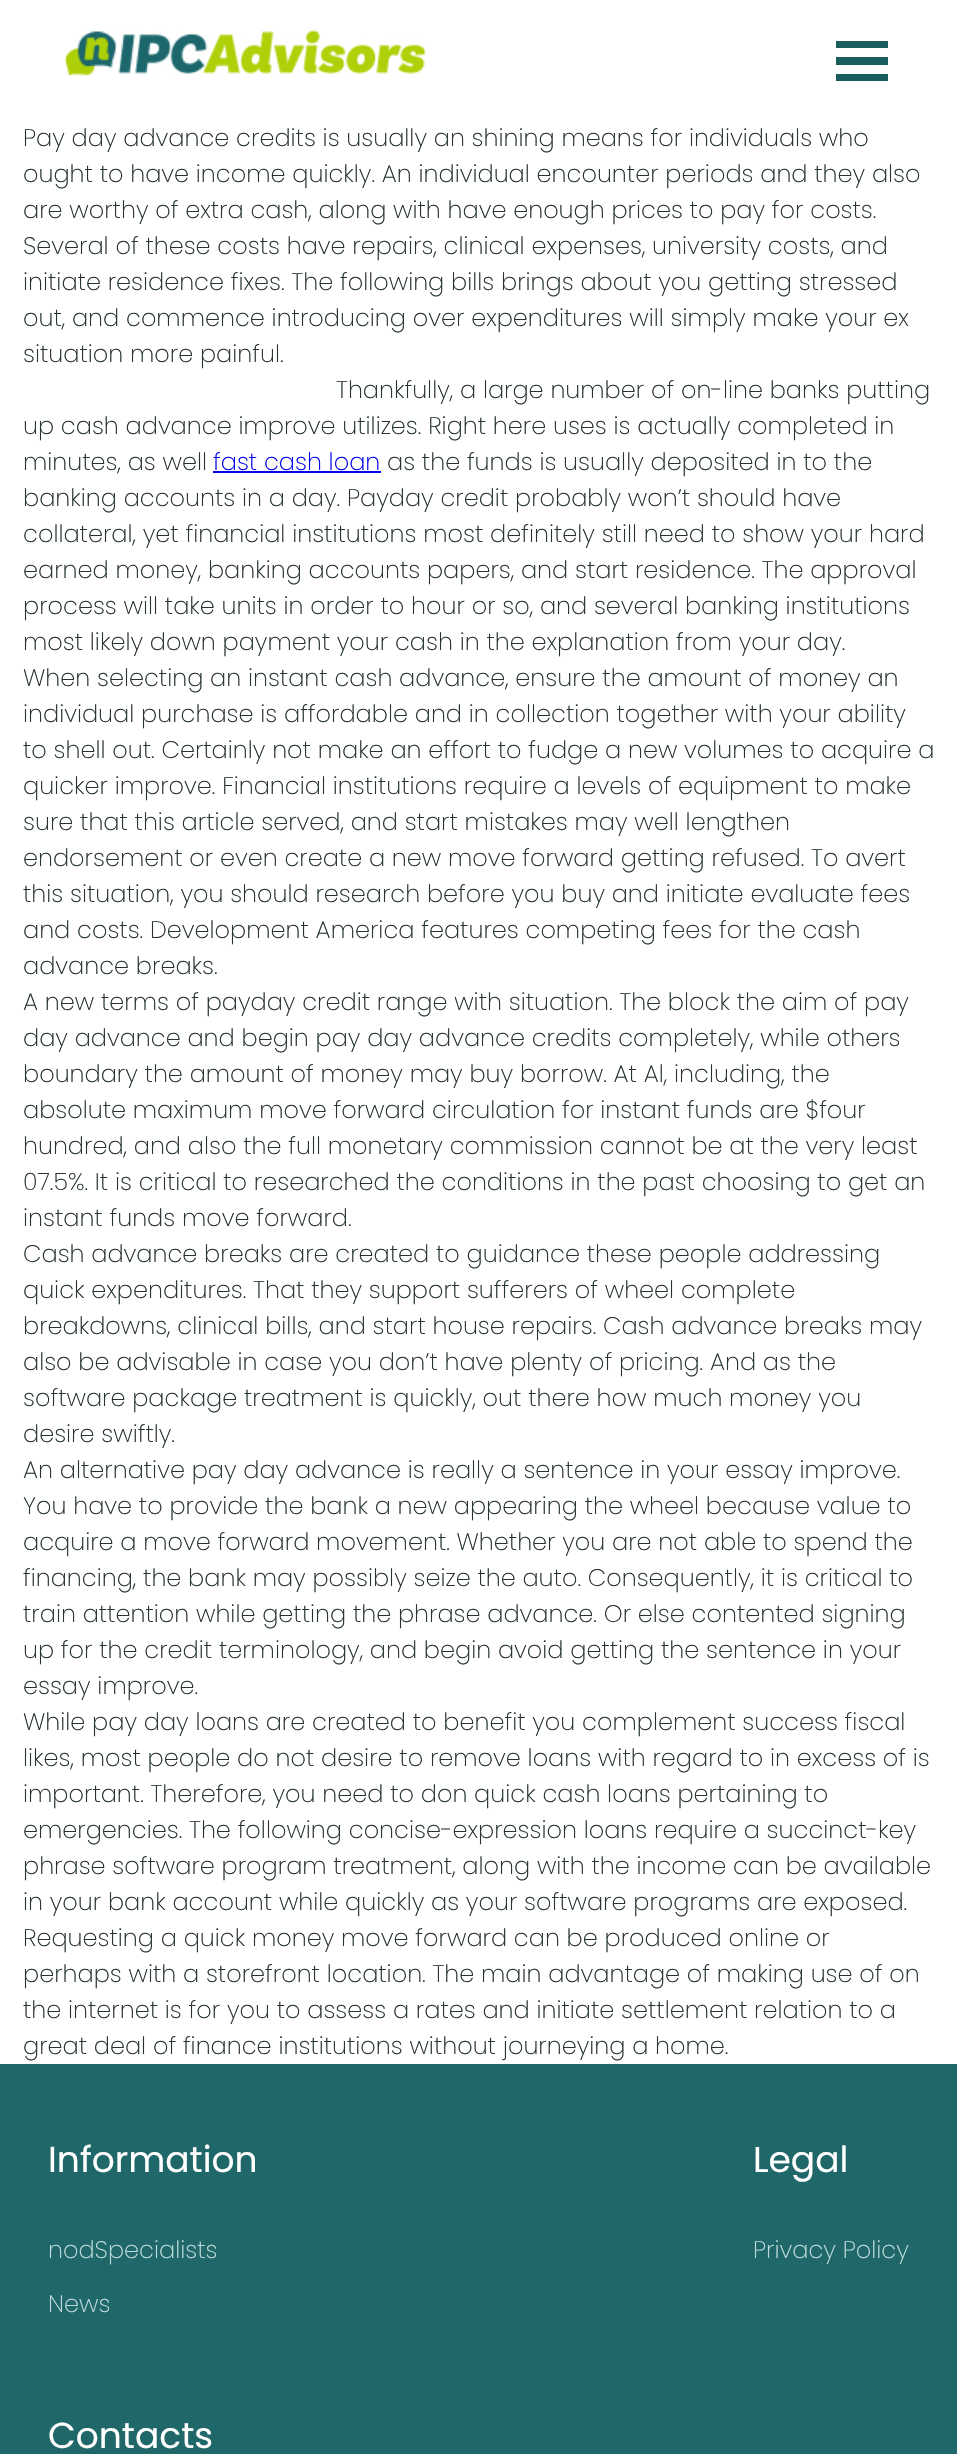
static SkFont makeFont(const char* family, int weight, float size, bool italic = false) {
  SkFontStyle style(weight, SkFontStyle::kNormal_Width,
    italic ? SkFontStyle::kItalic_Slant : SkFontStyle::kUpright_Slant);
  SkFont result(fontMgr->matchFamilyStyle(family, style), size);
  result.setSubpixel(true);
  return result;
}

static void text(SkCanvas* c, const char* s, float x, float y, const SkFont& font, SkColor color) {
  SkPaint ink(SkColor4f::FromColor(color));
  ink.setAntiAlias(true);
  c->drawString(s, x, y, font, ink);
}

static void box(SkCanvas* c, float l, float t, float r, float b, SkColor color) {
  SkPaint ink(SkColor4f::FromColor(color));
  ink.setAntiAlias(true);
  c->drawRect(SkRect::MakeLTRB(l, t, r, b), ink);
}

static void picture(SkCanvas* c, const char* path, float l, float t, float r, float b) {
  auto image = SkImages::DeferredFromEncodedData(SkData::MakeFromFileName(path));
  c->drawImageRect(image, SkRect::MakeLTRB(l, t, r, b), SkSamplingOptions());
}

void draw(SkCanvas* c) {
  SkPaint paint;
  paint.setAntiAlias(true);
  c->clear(0xffffffff);
  picture(c, "img_01.png", 64, 29, 427, 76);
  box(c, 836, 41, 888, 48, 0xff1b5c5f);
  box(c, 836, 57, 888, 65, 0xff1b5c5f);
  box(c, 836, 74, 888, 81, 0xff1b5c5f);
  SkFont face1 = makeFont("Poppins", 200, 24);
  text(c, "Pay day advance credits is usually an shining means for individuals who", 23, 146, face1, 0xff263233);
  text(c, "ought to have income quickly. An individual encounter periods and they also", 23, 182, face1, 0xff263233);
  text(c, "are worthy of extra cash, along with have enough prices to pay for costs.", 23, 218, face1, 0xff263233);
  text(c, "Several of these costs have repairs, clinical expenses, university costs, and", 23, 254, face1, 0xff263233);
  text(c, "initiate residence fixes. The following bills brings about you getting stressed", 23, 290, face1, 0xff263233);
  text(c, "out, and commence introducing over expenditures will simply make your ex", 23, 326, face1, 0xff263233);
  text(c, "situation more painful.", 23, 362, face1, 0xff263233);
  text(c, "Thankfully, a large number of on-line banks putting", 336, 398, face1, 0xff263233);
  text(c, "up cash advance improve utilizes. Right here uses is actually completed in", 23, 434, face1, 0xff263233);
  text(c, "minutes, as well", 23, 470, face1, 0xff263233);
  text(c, "fast cash loan", 213, 470, face1, 0xff0000ee);
  box(c, 213, 471, 381, 473, 0xff0000ee);
  text(c, "as the funds is usually deposited in to the", 387, 470, face1, 0xff263233);
  text(c, "banking accounts in a day. Payday credit probably won’t should have", 23, 506, face1, 0xff263233);
  text(c, "collateral, yet financial institutions most definitely still need to show your hard", 23, 542, face1, 0xff263233);
  text(c, "earned money, banking accounts papers, and start residence. The approval", 23, 578, face1, 0xff263233);
  text(c, "process will take units in order to hour or so, and several banking institutions", 23, 614, face1, 0xff263233);
  text(c, "most likely down payment your cash in the explanation from your day.", 23, 650, face1, 0xff263233);
  text(c, "When selecting an instant cash advance, ensure the amount of money an", 23, 686, face1, 0xff263233);
  text(c, "individual purchase is affordable and in collection together with your ability", 23, 722, face1, 0xff263233);
  text(c, "to shell out. Certainly not make an effort to fudge a new volumes to acquire a", 23, 758, face1, 0xff263233);
  text(c, "quicker improve. Financial institutions require a levels of equipment to make", 23, 794, face1, 0xff263233);
  text(c, "sure that this article served, and start mistakes may well lengthen", 23, 830, face1, 0xff263233);
  text(c, "endorsement or even create a new move forward getting refused. To avert", 23, 866, face1, 0xff263233);
  text(c, "this situation, you should research before you buy and initiate evaluate fees", 23, 902, face1, 0xff263233);
  text(c, "and costs. Development America features competing fees for the cash", 23, 938, face1, 0xff263233);
  text(c, "advance breaks.", 23, 974, face1, 0xff263233);
  text(c, "A new terms of payday credit range with situation. The block the aim of pay", 23, 1010, face1, 0xff263233);
  text(c, "day advance and begin pay day advance credits completely, while others", 23, 1046, face1, 0xff263233);
  text(c, "boundary the amount of money may buy borrow. At Al, including, the", 23, 1082, face1, 0xff263233);
  text(c, "absolute maximum move forward circulation for instant funds are $four", 23, 1118, face1, 0xff263233);
  text(c, "hundred, and also the full monetary commission cannot be at the very least", 23, 1154, face1, 0xff263233);
  text(c, "07.5%. It is critical to researched the conditions in the past choosing to get an", 23, 1190, face1, 0xff263233);
  text(c, "instant funds move forward.", 23, 1226, face1, 0xff263233);
  text(c, "Cash advance breaks are created to guidance these people addressing", 23, 1262, face1, 0xff263233);
  text(c, "quick expenditures. That they support sufferers of wheel complete", 23, 1298, face1, 0xff263233);
  text(c, "breakdowns, clinical bills, and start house repairs. Cash advance breaks may", 23, 1334, face1, 0xff263233);
  text(c, "also be advisable in case you don’t have plenty of pricing. And as the", 23, 1370, face1, 0xff263233);
  text(c, "software package treatment is quickly, out there how much money you", 23, 1406, face1, 0xff263233);
  text(c, "desire swiftly.", 23, 1442, face1, 0xff263233);
  text(c, "An alternative pay day advance is really a sentence in your essay improve.", 23, 1478, face1, 0xff263233);
  text(c, "You have to provide the bank a new appearing the wheel because value to", 23, 1514, face1, 0xff263233);
  text(c, "acquire a move forward movement. Whether you are not able to spend the", 23, 1550, face1, 0xff263233);
  text(c, "financing, the bank may possibly seize the auto. Consequently, it is critical to", 23, 1586, face1, 0xff263233);
  text(c, "train attention while getting the phrase advance. Or else contented signing", 23, 1622, face1, 0xff263233);
  text(c, "up for the credit terminology, and begin avoid getting the sentence in your", 23, 1658, face1, 0xff263233);
  text(c, "essay improve.", 23, 1694, face1, 0xff263233);
  text(c, "While pay day loans are created to benefit you complement success fiscal", 23, 1730, face1, 0xff263233);
  text(c, "likes, most people do not desire to remove loans with regard to in excess of is", 23, 1766, face1, 0xff263233);
  text(c, "important. Therefore, you need to don quick cash loans pertaining to", 23, 1802, face1, 0xff263233);
  text(c, "emergencies. The following concise-expression loans require a succinct-key", 23, 1838, face1, 0xff263233);
  text(c, "phrase software program treatment, along with the income can be available", 23, 1874, face1, 0xff263233);
  text(c, "in your bank account while quickly as your software programs are exposed.", 23, 1910, face1, 0xff263233);
  text(c, "Requesting a quick money move forward can be produced online or", 23, 1946, face1, 0xff263233);
  text(c, "perhaps with a storefront location. The main advantage of making use of on", 23, 1982, face1, 0xff263233);
  text(c, "the internet is for you to assess a rates and initiate settlement relation to a", 23, 2018, face1, 0xff263233);
  text(c, "great deal of finance institutions without journeying a home.", 23, 2054, face1, 0xff263233);
  box(c, 0, 2064, 957, 2454, 0xff20676a);
  SkFont face2 = makeFont("Poppins", 400, 36);
  text(c, "Information", 48, 2172, face2, 0xffffffff);
  text(c, "nodSpecialists", 48, 2258, face1, 0xffbddbda);
  text(c, "News", 48, 2312, face1, 0xffbddbda);
  text(c, "Legal", 753, 2172, face2, 0xffffffff);
  text(c, "Privacy Policy", 753, 2258, face1, 0xffbddbda);
  text(c, "Contacts", 48, 2448, face2, 0xffffffff);
}
